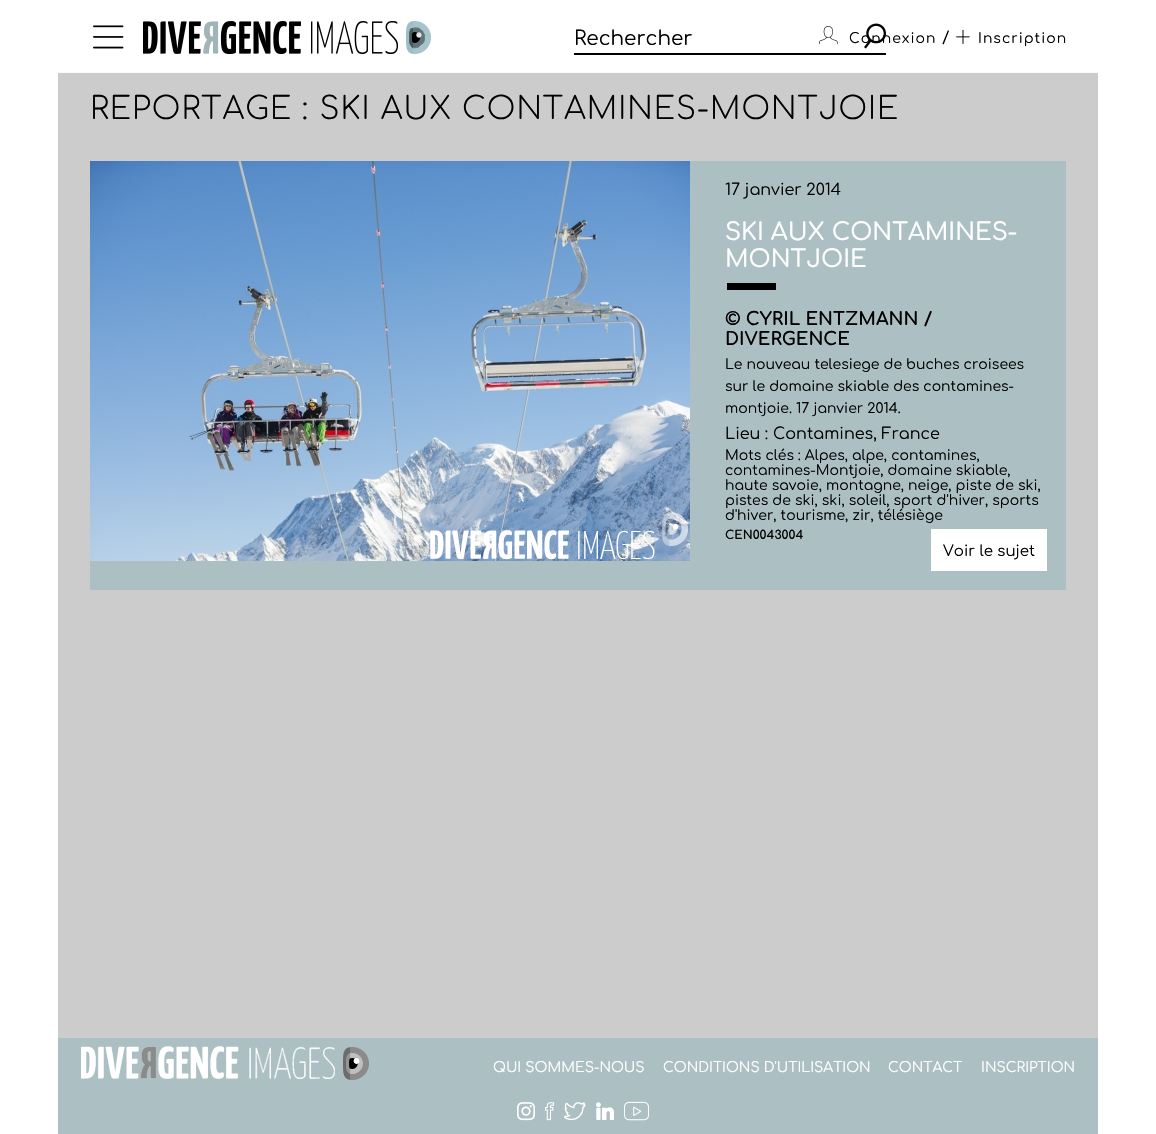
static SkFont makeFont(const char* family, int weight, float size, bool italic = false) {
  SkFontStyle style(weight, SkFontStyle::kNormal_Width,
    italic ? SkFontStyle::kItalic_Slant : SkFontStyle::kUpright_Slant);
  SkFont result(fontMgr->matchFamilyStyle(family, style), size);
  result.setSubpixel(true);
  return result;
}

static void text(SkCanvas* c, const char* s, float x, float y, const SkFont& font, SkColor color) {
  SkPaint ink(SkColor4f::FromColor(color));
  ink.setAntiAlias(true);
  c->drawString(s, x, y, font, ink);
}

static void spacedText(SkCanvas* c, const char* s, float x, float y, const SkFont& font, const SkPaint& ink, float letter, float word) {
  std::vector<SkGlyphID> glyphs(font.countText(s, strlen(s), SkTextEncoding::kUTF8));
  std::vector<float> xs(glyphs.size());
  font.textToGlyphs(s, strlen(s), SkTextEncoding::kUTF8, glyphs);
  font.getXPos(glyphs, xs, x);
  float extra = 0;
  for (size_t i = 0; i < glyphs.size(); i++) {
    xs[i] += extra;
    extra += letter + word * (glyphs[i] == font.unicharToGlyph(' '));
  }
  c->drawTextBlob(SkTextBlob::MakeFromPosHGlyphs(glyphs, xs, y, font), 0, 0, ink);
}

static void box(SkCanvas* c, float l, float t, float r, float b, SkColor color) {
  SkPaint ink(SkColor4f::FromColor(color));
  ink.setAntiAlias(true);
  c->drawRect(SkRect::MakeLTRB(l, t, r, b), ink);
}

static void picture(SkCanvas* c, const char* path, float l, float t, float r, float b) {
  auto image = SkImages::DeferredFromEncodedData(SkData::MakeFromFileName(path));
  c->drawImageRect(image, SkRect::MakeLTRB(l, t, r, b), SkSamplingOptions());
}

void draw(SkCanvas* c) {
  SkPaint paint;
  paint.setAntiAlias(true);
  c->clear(0xffffffff);
  box(c, 58, 73, 1098, 1038, 0xffcccccc);
  box(c, 58, 72, 1098, 73, 0xfffafafa);
  picture(c, "img_01.png", 93, 25, 124, 49);
  picture(c, "img_02.png", 143, 21, 431, 54);
  box(c, 574, 53, 886, 55, 0xff000000);
  SkFont face1 = makeFont("Comfortaa", 400, 20);
  text(c, "Rechercher", 574, 45, face1, 0xff000000);
  picture(c, "img_03.png", 864, 23, 886, 49);
  picture(c, "img_04.png", 819, 26, 838, 45);
  SkFont face2 = makeFont("Comfortaa", 400, 14);
  paint.setColor(0xff000000);
  spacedText(c, "Connexion", 849, 43, face2, paint, 1, 0);
  SkFont face3 = makeFont("Comfortaa", 400, 16);
  spacedText(c, "/", 942, 43, face3, paint, 1, 0);
  picture(c, "img_05.png", 956, 29, 970, 44);
  spacedText(c, "Inscription", 978, 43, face2, paint, 1, 0);
  SkFont face4 = makeFont("Comfortaa", 300, 31);
  spacedText(c, "REPORTAGE : SKI AUX CONTAMINES-MONTJOIE", 90, 119, face4, paint, 1, 0);
  box(c, 90, 161, 1066, 590, 0xffacbfc3);
  picture(c, "img_06.png", 90, 161, 690, 561);
  text(c, "17 janvier 2014", 725, 195, face3, 0xff000000);
  SkFont face5 = makeFont("Comfortaa", 500, 24);
  text(c, "SKI AUX CONTAMINES-", 725, 240, face5, 0xffffffff);
  text(c, "MONTJOIE", 725, 267, face5, 0xffffffff);
  box(c, 727, 283, 776, 290, 0xff000000);
  SkFont face6 = makeFont("Comfortaa", 700, 18);
  text(c, "© CYRIL ENTZMANN /", 725, 325, face6, 0xff000000);
  text(c, "DIVERGENCE", 725, 345, face6, 0xff000000);
  text(c, "Le nouveau telesiege de buches croisees", 725, 369, face2, 0xff000000);
  text(c, "sur le domaine skiable des contamines-", 725, 391, face2, 0xff000000);
  text(c, "montjoie. 17 janvier 2014.", 725, 413, face2, 0xff000000);
  text(c, "Lieu : Contamines, France", 725, 439, face3, 0xff000000);
  text(c, "Mots clés : Alpes, alpe, contamines,", 725, 460, face2, 0xff000000);
  text(c, "contamines-Montjoie, domaine skiable,", 725, 475, face2, 0xff000000);
  text(c, "haute savoie, montagne, neige, piste de ski,", 725, 490, face2, 0xff000000);
  text(c, "pistes de ski, ski, soleil, sport d'hiver, sports", 725, 505, face2, 0xff000000);
  text(c, "d'hiver, tourisme, zir, télésiège", 725, 520, face2, 0xff000000);
  SkFont face7 = makeFont("Comfortaa", 700, 12);
  text(c, "CEN0043004", 725, 539, face7, 0xff000000);
  box(c, 931, 529, 1047, 571, 0xffffffff);
  SkFont face8 = makeFont("Comfortaa", 400, 15);
  text(c, "Voir le sujet", 943, 556, face8, 0xff000000);
  box(c, 58, 1038, 1098, 1134, 0xffacbfc3);
  picture(c, "img_07.png", 81, 1046, 369, 1080);
  text(c, "QUI SOMMES-NOUS", 493, 1072, face2, 0xffffffff);
  text(c, "CONDITIONS D'UTILISATION", 663, 1072, face2, 0xffffffff);
  text(c, "CONTACT", 888, 1072, face2, 0xffffffff);
  text(c, "INSCRIPTION", 981, 1072, face2, 0xffffffff);
  picture(c, "img_08.png", 517, 1102, 535, 1121);
  picture(c, "img_09.png", 545, 1102, 555, 1121);
  picture(c, "img_10.png", 564, 1102, 586, 1121);
  picture(c, "img_11.png", 596, 1102, 614, 1120);
  picture(c, "img_12.png", 624, 1101, 649, 1121);
}
